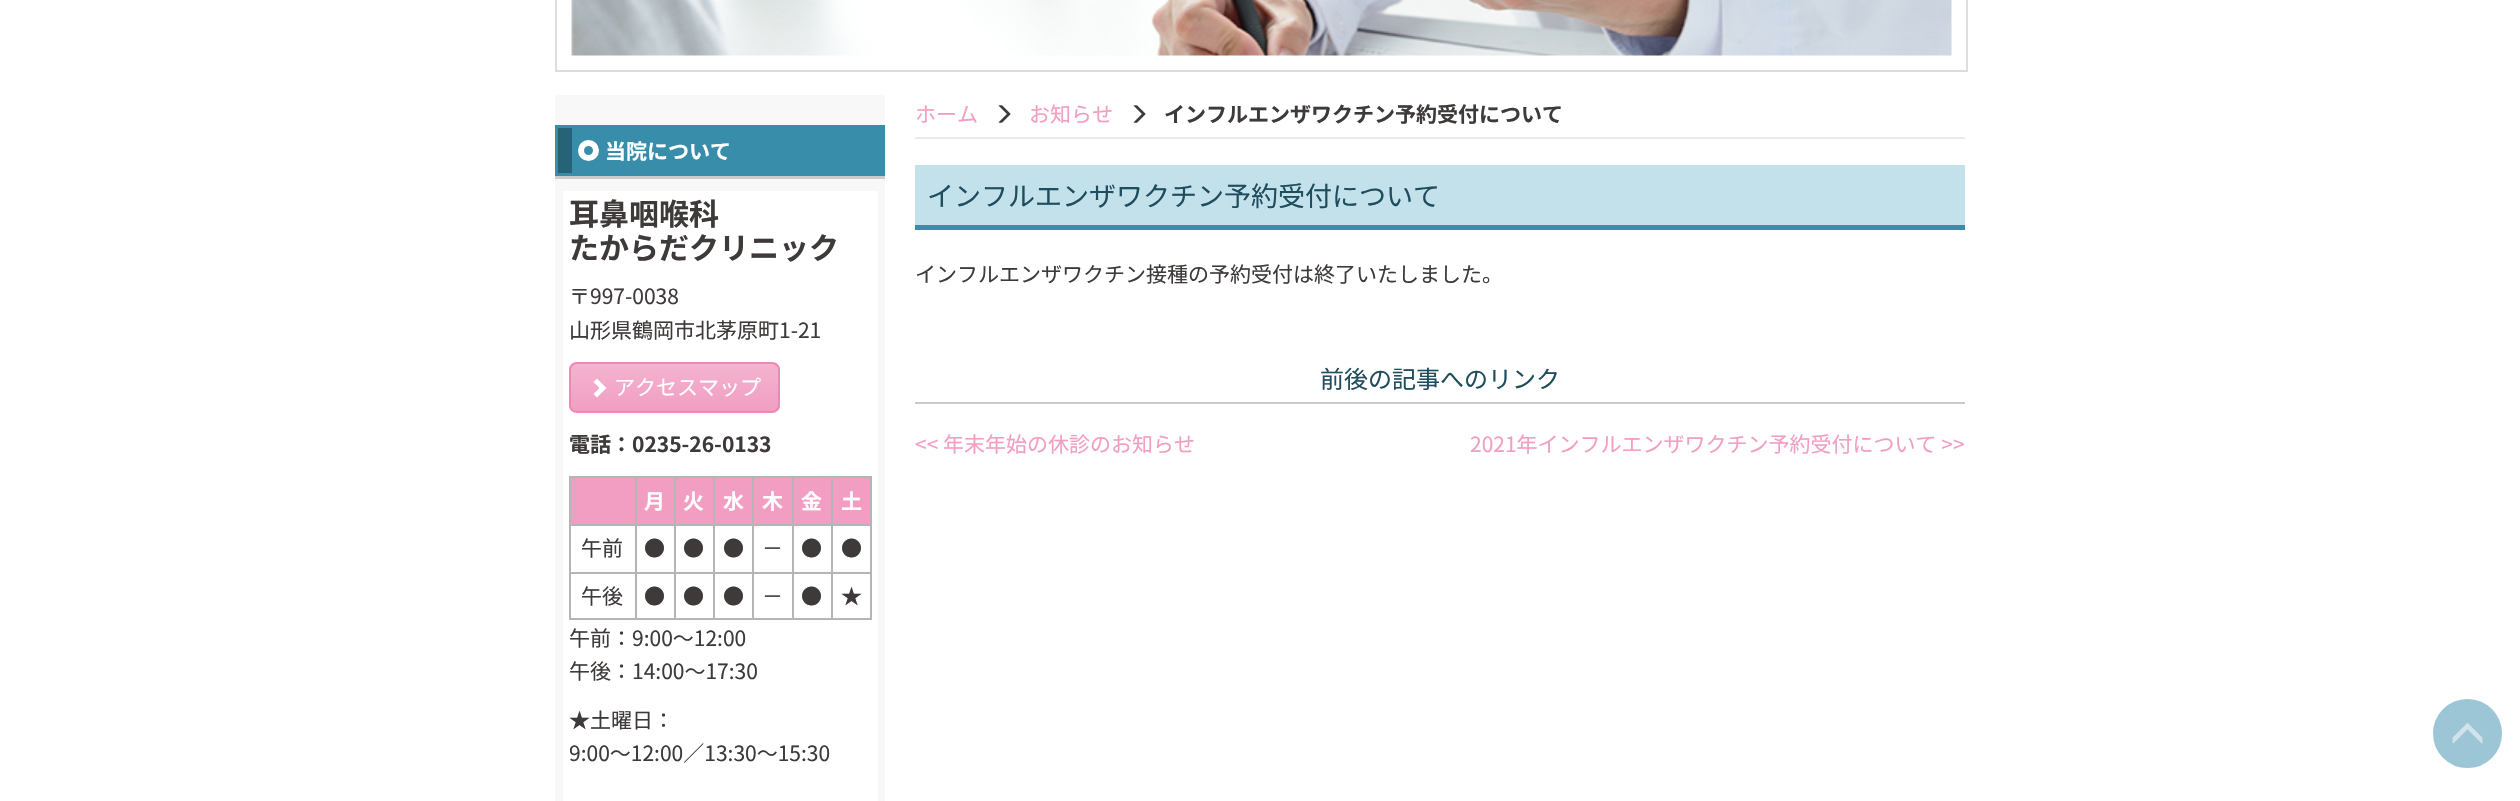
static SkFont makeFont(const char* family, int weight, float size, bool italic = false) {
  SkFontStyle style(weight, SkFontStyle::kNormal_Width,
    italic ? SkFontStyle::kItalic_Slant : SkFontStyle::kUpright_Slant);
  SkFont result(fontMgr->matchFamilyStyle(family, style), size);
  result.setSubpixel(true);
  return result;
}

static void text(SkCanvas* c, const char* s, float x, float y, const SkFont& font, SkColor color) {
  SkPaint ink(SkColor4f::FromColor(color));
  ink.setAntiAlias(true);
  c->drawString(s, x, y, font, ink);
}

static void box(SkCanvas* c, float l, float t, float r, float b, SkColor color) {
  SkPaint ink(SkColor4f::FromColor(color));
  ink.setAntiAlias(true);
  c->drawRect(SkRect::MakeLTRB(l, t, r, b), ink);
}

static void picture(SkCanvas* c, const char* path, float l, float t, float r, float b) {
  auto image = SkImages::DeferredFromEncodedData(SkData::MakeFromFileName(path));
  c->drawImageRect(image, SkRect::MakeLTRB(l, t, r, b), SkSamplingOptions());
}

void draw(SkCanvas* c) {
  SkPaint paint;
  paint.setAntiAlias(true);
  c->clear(0xffffffff);
  paint.setStyle(SkPaint::kStroke_Style);
  paint.setStrokeWidth(2);
  paint.setColor(0xffdddddd);
  c->drawRect(SkRect::MakeLTRB(556, -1, 1967, 71), paint);
  picture(c, "img_01.png", 571, 0, 1952, 56);
  box(c, 555, 95, 885, 801, 0xfff8f8f8);
  box(c, 555, 176, 885, 179, 0xffcccccc);
  box(c, 555, 125, 885, 176, 0xff388daa);
  box(c, 558, 128, 572, 173, 0xff276377);
  paint.setStrokeWidth(6);
  paint.setColor(0xffffffff);
  c->drawCircle(588.5f, 150.5f, 7.5f, paint);
  SkFont face1 = makeFont("Noto Sans JP", 700, 21);
  text(c, "当院について", 605, 159, face1, 0xffffffff);
  box(c, 563, 191, 878, 801, 0xffffffff);
  SkFont face2 = makeFont("Noto Sans JP", 700, 30);
  text(c, "耳鼻咽喉科", 569, 225, face2, 0xff3e3a39);
  text(c, "たからだクリニック", 569, 259, face2, 0xff3e3a39);
  SkFont face3 = makeFont("Noto Sans JP", 400, 21);
  text(c, "〒997-0038", 569, 304, face3, 0xff3e3a39);
  text(c, "山形県鶴岡市北茅原町1-21", 569, 338, face3, 0xff3e3a39);
  c->save();
  c->clipPath(SkPathBuilder().moveTo(577, 362).lineTo(772, 362).cubicTo(776.5f, 362, 780, 365.5f, 780, 370).lineTo(780, 405).cubicTo(780, 409.5f, 776.5f, 413, 772, 413).lineTo(577, 413).cubicTo(572.5f, 413, 569, 409.5f, 569, 405).lineTo(569, 370).cubicTo(569, 365.5f, 572.5f, 362, 577, 362).close().detach(), true);
  paint.setStyle(SkPaint::kFill_Style);
  {
    const SkColor colors[] = {0xfff4b4d0, 0xfff19ec2};
    const float stops[] = {0, 1};
    const SkPoint ends[] = {{674, 363}, {674, 411}};
    paint.setShader(SkGradientShader::MakeLinear(ends, colors, stops, 2, SkTileMode::kClamp));
    paint.setAlpha(255);
  }
  c->drawRect(SkRect::MakeLTRB(569, 363, 780, 411), paint);
  c->restore();
  paint.setStyle(SkPaint::kStroke_Style);
  paint.setStrokeWidth(2);
  paint.setShader(nullptr);
  paint.setColor(0xffee88b4);
  c->drawRoundRect(SkRect::MakeLTRB(570, 363, 779, 412), 7, 7, paint);
  paint.setStyle(SkPaint::kFill_Style);
  paint.setColor(0xffffffff);
  c->drawPath(SkPathBuilder().moveTo(606.5f, 388).lineTo(597, 397.5f).lineTo(593.5f, 394).lineTo(599.5f, 388).lineTo(593.5f, 382).lineTo(597, 378.5f).close().detach(), paint);
  text(c, "アクセスマップ", 614, 395, face3, 0xffffffff);
  text(c, "電話：0235-26-0133", 569, 452, face1, 0xff3e3a39);
  box(c, 569, 476, 872, 478, 0xffb5b5b6);
  box(c, 870, 476, 872, 620, 0xffb5b5b6);
  box(c, 569, 618, 872, 620, 0xffb5b5b6);
  box(c, 569, 476, 571, 620, 0xffb5b5b6);
  box(c, 571, 478, 635, 524, 0xfff19ec2);
  box(c, 637, 478, 674, 524, 0xfff19ec2);
  text(c, "月", 644, 509, face1, 0xffffffff);
  box(c, 676, 478, 713, 524, 0xfff19ec2);
  text(c, "火", 683, 509, face1, 0xffffffff);
  box(c, 715, 478, 752, 524, 0xfff19ec2);
  text(c, "水", 723, 509, face1, 0xffffffff);
  box(c, 754, 478, 792, 524, 0xfff19ec2);
  text(c, "木", 762, 509, face1, 0xffffffff);
  box(c, 794, 478, 831, 524, 0xfff19ec2);
  text(c, "金", 801, 509, face1, 0xffffffff);
  box(c, 833, 478, 870, 524, 0xfff19ec2);
  text(c, "土", 841, 509, face1, 0xffffffff);
  box(c, 569, 524, 872, 526, 0xffb5b5b6);
  text(c, "午前", 581, 556, face3, 0xff3e3a39);
  text(c, "●", 644, 556, face3, 0xff3e3a39);
  text(c, "●", 683, 556, face3, 0xff3e3a39);
  text(c, "●", 723, 556, face3, 0xff3e3a39);
  text(c, "－", 762, 556, face3, 0xff3e3a39);
  text(c, "●", 801, 556, face3, 0xff3e3a39);
  text(c, "●", 841, 556, face3, 0xff3e3a39);
  box(c, 569, 572, 872, 574, 0xffb5b5b6);
  text(c, "午後", 581, 604, face3, 0xff3e3a39);
  box(c, 635, 476, 637, 620, 0xffb5b5b6);
  text(c, "●", 644, 604, face3, 0xff3e3a39);
  box(c, 674, 476, 676, 620, 0xffb5b5b6);
  text(c, "●", 683, 604, face3, 0xff3e3a39);
  box(c, 713, 476, 715, 620, 0xffb5b5b6);
  text(c, "●", 723, 604, face3, 0xff3e3a39);
  box(c, 752, 476, 754, 620, 0xffb5b5b6);
  text(c, "－", 762, 604, face3, 0xff3e3a39);
  box(c, 792, 476, 794, 620, 0xffb5b5b6);
  text(c, "●", 801, 604, face3, 0xff3e3a39);
  box(c, 831, 476, 833, 620, 0xffb5b5b6);
  text(c, "★", 841, 604, face3, 0xff3e3a39);
  text(c, "午前：9:00～12:00", 569, 646, face3, 0xff3e3a39);
  text(c, "午後：14:00～17:30", 569, 679, face3, 0xff3e3a39);
  text(c, "★土曜日：", 569, 728, face3, 0xff3e3a39);
  text(c, "9:00～12:00／13:30～15:30", 569, 761, face3, 0xff3e3a39);
  box(c, 915, 137, 1965, 139, 0xffeaeaea);
  text(c, "ホーム", 915, 122, face3, 0xfff19ec2);
  picture(c, "img_02.png", 998, 105, 1011, 123);
  text(c, "お知らせ", 1029, 122, face3, 0xfff19ec2);
  picture(c, "img_02.png", 1133, 105, 1146, 123);
  text(c, "インフルエンザワクチン予約受付について", 1164, 122, face1, 0xff3e3a39);
  box(c, 915, 165, 1965, 225, 0xffc3e1eb);
  box(c, 915, 225, 1965, 230, 0xff388daa);
  SkFont face4 = makeFont("Noto Sans JP", 400, 27);
  text(c, "インフルエンザワクチン予約受付について", 927, 206, face4, 0xff1f4d5d);
  text(c, "インフルエンザワクチン接種の予約受付は終了いたしました。", 915, 282, face3, 0xff3e3a39);
  box(c, 915, 402, 1965, 404, 0xffc9caca);
  SkFont face5 = makeFont("Noto Sans JP", 400, 24);
  text(c, "前後の記事へのリンク", 1320, 388, face5, 0xff1f4d5d);
  text(c, "<< 年末年始の休診のお知らせ", 915, 452, face3, 0xfff19ec2);
  text(c, "2021年インフルエンザワクチン予約受付について >>", 1470, 452, face3, 0xfff19ec2);
  paint.setColor(0xff9cc6d5);
  c->drawCircle(2467.5f, 733.5f, 36, paint);
  paint.setStyle(SkPaint::kStroke_Style);
  paint.setStrokeWidth(3);
  paint.setColor(0xffffffff);
  c->drawCircle(2467.5f, 733.5f, 36, paint);
  picture(c, "img_03.png", 2452, 723, 2483, 744);
}
